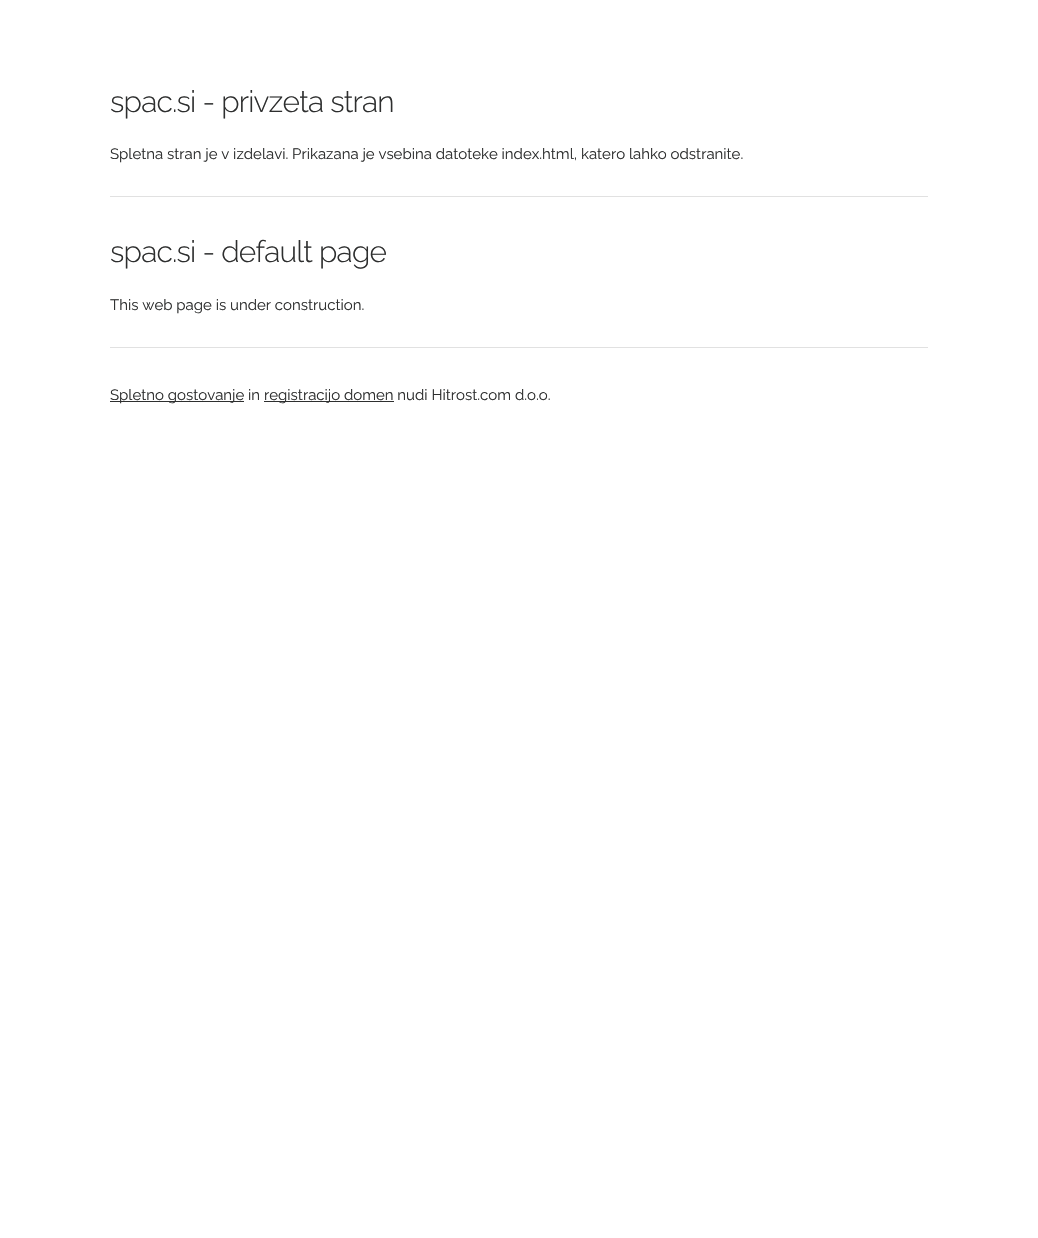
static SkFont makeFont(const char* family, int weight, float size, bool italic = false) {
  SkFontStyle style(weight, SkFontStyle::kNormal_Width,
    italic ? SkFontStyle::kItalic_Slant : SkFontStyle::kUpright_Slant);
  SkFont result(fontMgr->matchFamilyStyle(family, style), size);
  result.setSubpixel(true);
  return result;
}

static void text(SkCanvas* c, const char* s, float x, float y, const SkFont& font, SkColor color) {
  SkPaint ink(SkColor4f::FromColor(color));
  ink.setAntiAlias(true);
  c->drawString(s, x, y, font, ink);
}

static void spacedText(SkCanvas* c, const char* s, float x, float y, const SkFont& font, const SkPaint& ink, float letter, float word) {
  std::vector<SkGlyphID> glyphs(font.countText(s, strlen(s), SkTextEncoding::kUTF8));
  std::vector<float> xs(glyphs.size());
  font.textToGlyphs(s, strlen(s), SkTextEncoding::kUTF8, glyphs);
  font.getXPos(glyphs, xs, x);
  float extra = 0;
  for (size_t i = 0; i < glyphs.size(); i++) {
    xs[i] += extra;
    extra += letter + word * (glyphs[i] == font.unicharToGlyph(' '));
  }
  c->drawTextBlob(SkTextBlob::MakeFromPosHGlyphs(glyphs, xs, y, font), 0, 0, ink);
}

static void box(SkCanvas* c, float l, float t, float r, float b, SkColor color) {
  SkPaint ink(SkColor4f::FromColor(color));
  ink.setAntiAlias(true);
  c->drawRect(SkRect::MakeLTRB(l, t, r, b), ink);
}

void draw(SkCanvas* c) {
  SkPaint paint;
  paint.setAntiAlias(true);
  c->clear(0xffffffff);
  SkFont face1 = makeFont("Raleway", 300, 30);
  paint.setColor(0xff2e2f2f);
  spacedText(c, "spac.si - privzeta stran", 110, 112, face1, paint, -0.8f, 0);
  SkFont face2 = makeFont("Raleway", 400, 15);
  text(c, "Spletna stran je v izdelavi. Prikazana je vsebina datoteke index.html, katero lahko odstranite.", 110, 159, face2, 0xff2e2f2f);
  box(c, 110, 196, 928, 197, 0xffe1e1e1);
  spacedText(c, "spac.si - default page", 110, 262, face1, paint, -0.8f, 0);
  text(c, "This web page is under construction.", 110, 310, face2, 0xff2e2f2f);
  box(c, 110, 347, 928, 348, 0xffe1e1e1);
  box(c, 110, 401, 244, 402, 0xff2e2f2f);
  text(c, "Spletno gostovanje in", 110, 400, face2, 0xff2e2f2f);
  box(c, 264, 401, 394, 402, 0xff2e2f2f);
  text(c, "registracijo domen nudi Hitrost.com d.o.o.", 264, 400, face2, 0xff2e2f2f);
}
